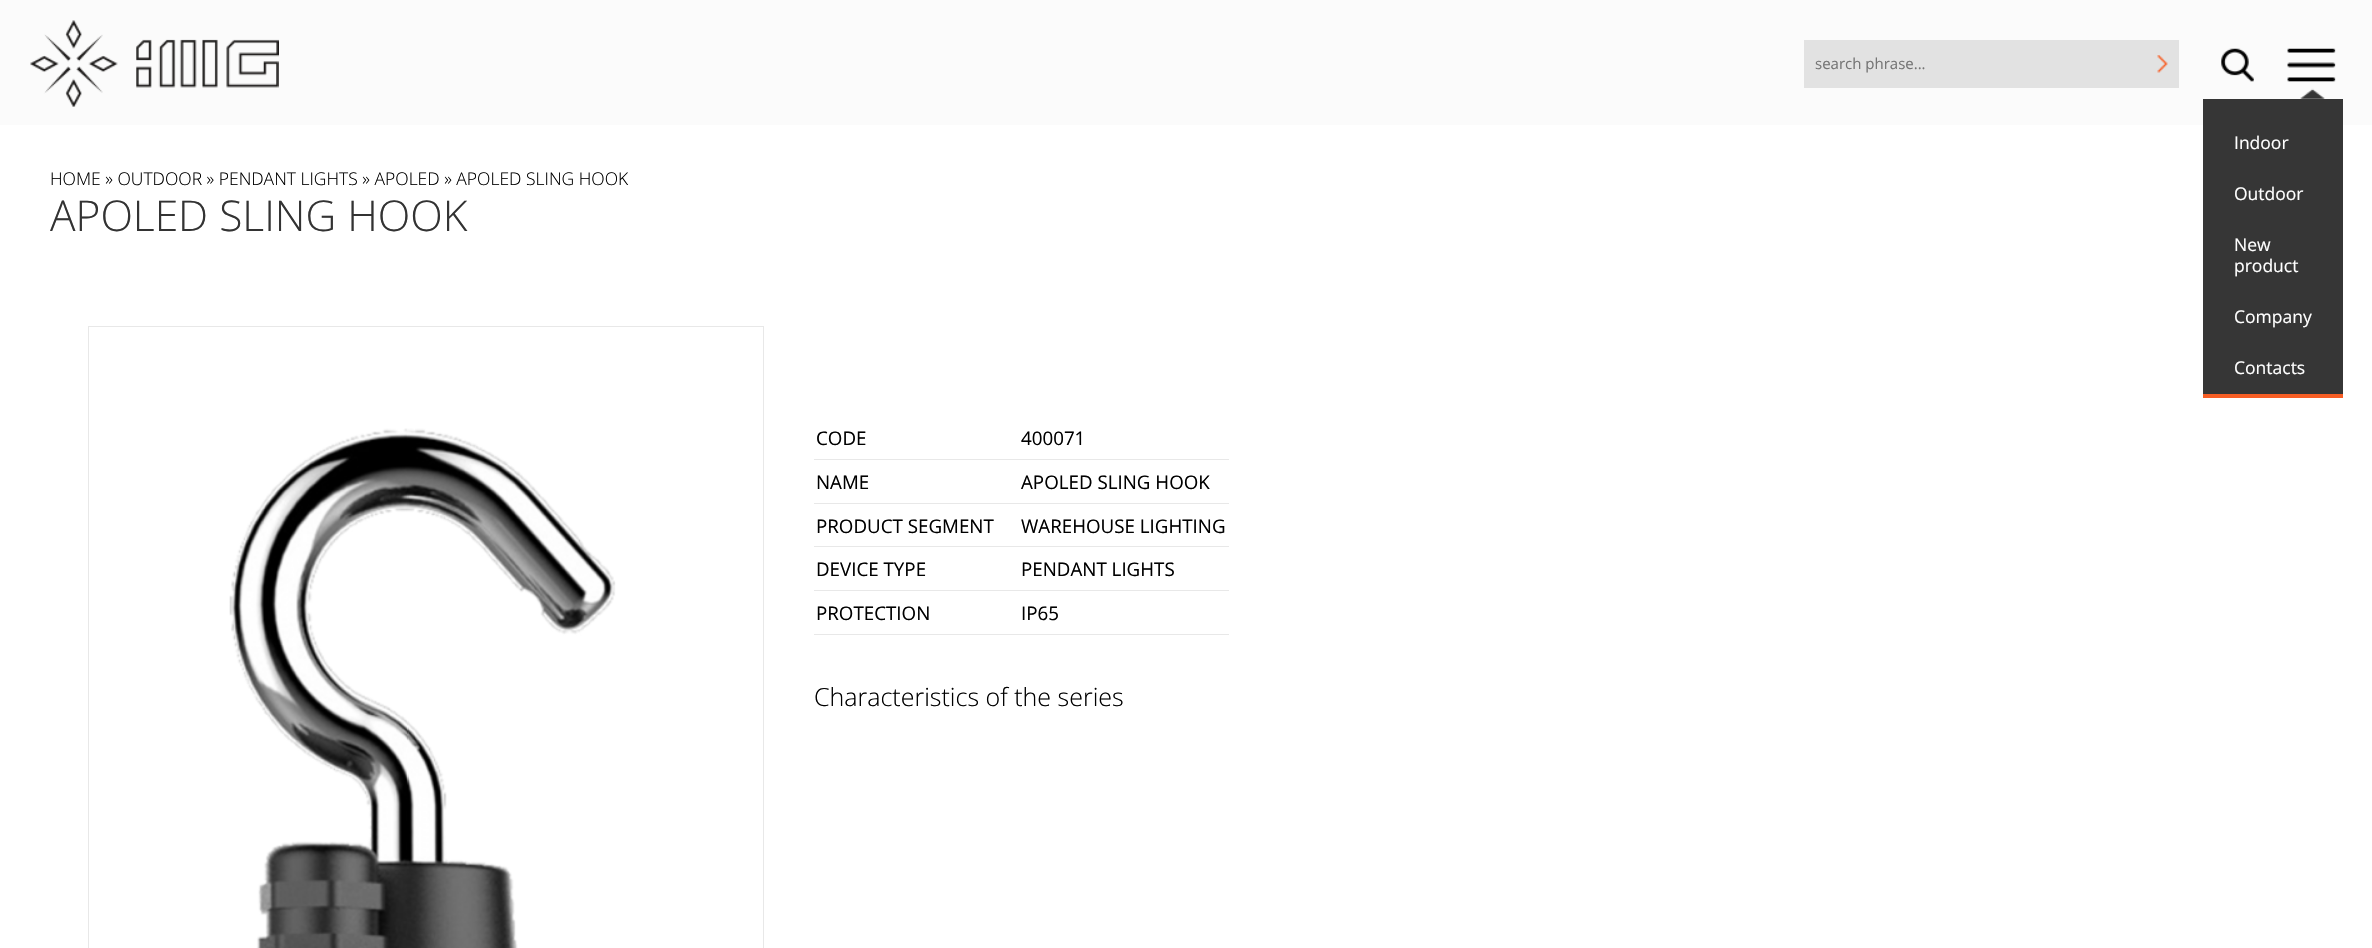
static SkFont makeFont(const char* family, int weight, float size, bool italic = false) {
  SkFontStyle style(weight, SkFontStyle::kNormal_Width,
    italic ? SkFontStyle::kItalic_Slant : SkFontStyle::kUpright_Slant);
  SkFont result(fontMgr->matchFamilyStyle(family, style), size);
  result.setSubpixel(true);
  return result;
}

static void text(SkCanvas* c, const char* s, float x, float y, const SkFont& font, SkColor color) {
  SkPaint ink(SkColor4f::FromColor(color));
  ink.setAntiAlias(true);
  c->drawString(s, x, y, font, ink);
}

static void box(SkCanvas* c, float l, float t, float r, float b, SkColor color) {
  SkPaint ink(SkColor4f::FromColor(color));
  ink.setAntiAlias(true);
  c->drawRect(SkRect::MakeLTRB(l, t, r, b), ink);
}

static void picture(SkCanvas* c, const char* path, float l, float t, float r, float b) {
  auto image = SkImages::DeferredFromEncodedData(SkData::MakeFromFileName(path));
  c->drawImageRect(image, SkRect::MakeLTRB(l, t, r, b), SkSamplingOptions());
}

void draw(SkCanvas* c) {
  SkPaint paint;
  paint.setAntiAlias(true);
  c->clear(0xffffffff);
  SkFont face1 = makeFont("Open Sans", 300, 17.5f);
  text(c, "HOME » OUTDOOR » PENDANT LIGHTS » APOLED » APOLED SLING HOOK", 50, 185, face1, 0xff000000);
  SkFont face2 = makeFont("Open Sans", 300, 42.5f);
  text(c, "APOLED SLING HOOK", 50, 231, face2, 0xff333333);
  paint.setStyle(SkPaint::kStroke_Style);
  paint.setStrokeWidth(1);
  paint.setColor(0xffe8e8e8);
  c->drawRect(SkRect::MakeLTRB(88.5f, 326.5f, 763.5f, 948.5f), paint);
  picture(c, "img_01.png", 229, 428, 616, 948);
  box(c, 814, 459, 1229, 460, 0xffe8e8e8);
  SkFont face3 = makeFont("Open Sans", 400, 18.75f);
  text(c, "CODE", 816, 445, face3, 0xff000000);
  text(c, "400071", 1021, 445, face3, 0xff000000);
  box(c, 814, 503, 1229, 504, 0xffe8e8e8);
  text(c, "NAME", 816, 489, face3, 0xff000000);
  text(c, "APOLED SLING HOOK", 1021, 489, face3, 0xff000000);
  box(c, 814, 546, 1229, 547, 0xffe8e8e8);
  text(c, "PRODUCT SEGMENT", 816, 533, face3, 0xff000000);
  text(c, "WAREHOUSE LIGHTING", 1021, 533, face3, 0xff000000);
  box(c, 814, 590, 1229, 591, 0xffe8e8e8);
  text(c, "DEVICE TYPE", 816, 576, face3, 0xff000000);
  text(c, "PENDANT LIGHTS", 1021, 576, face3, 0xff000000);
  box(c, 814, 634, 1229, 635, 0xffe8e8e8);
  text(c, "PROTECTION", 816, 620, face3, 0xff000000);
  text(c, "IP65", 1021, 620, face3, 0xff000000);
  SkFont face4 = makeFont("Open Sans", 300, 25);
  text(c, "Characteristics of the series", 814, 706, face4, 0xff000000);
  box(c, 0, 0, 2372, 125, 0xfffbfbfb);
  picture(c, "img_02.png", 30, 20, 279, 107);
  box(c, 1804, 40, 2179, 88, 0xffe2e2e2);
  picture(c, "img_03.png", 2157, 55, 2168, 73);
  SkFont face5 = makeFont("Open Sans", 400, 15);
  text(c, "search phrase...", 1815, 69, face5, 0xff757575);
  picture(c, "img_04.png", 2221, 48, 2254, 82);
  picture(c, "img_05.png", 2287, 48, 2336, 82);
  box(c, 2203, 99, 2343, 394, 0xff363636);
  box(c, 2203, 394, 2343, 398, 0xfff75e25);
  picture(c, "img_06.png", 2300, 88, 2325, 99);
  SkFont face6 = makeFont("Open Sans", 400, 17.5f);
  text(c, "Indoor", 2234, 149, face6, 0xffffffff);
  text(c, "Outdoor", 2234, 200, face6, 0xffffffff);
  text(c, "New", 2234, 251, face6, 0xffffffff);
  text(c, "product", 2234, 272, face6, 0xffffffff);
  text(c, "Company", 2234, 323, face6, 0xffffffff);
  text(c, "Contacts", 2234, 374, face6, 0xffffffff);
}
